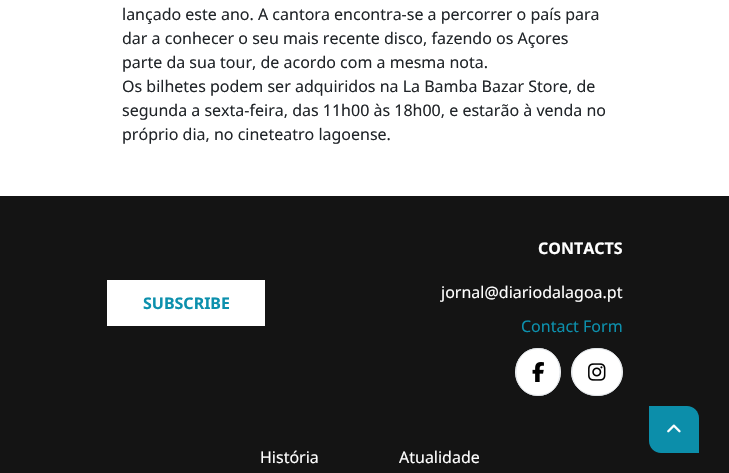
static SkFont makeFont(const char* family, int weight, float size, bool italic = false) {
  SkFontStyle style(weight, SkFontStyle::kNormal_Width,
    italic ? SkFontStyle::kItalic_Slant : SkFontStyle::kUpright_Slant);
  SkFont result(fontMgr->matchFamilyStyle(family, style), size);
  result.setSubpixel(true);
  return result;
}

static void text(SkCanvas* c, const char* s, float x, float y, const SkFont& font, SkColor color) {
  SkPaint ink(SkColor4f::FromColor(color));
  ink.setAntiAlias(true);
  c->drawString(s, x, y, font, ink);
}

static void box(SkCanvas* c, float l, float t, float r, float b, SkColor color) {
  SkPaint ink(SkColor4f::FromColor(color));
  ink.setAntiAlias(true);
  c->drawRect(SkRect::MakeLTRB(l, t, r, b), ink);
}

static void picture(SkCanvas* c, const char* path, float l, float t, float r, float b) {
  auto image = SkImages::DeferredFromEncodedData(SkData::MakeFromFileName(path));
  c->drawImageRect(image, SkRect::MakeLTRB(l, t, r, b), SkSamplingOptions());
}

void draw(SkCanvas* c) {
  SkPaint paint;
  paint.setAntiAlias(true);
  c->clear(0xffffffff);
  SkFont face1 = makeFont("Noto Sans", 400, 16);
  text(c, "lançado este ano. A cantora encontra-se a percorrer o país para", 122, 20, face1, 0xff212529);
  text(c, "dar a conhecer o seu mais recente disco, fazendo os Açores", 122, 44, face1, 0xff212529);
  text(c, "parte da sua tour, de acordo com a mesma nota.", 122, 68, face1, 0xff212529);
  text(c, "Os bilhetes podem ser adquiridos na La Bamba Bazar Store, de", 122, 92, face1, 0xff212529);
  text(c, "segunda a sexta-feira, das 11h00 às 18h00, e estarão à venda no", 122, 116, face1, 0xff212529);
  text(c, "próprio dia, no cineteatro lagoense.", 122, 140, face1, 0xff212529);
  box(c, 0, 196, 729, 473, 0xff141414);
  box(c, 107, 280, 265, 326, 0xffffffff);
  SkFont face2 = makeFont("Noto Sans", 700, 16);
  text(c, "SUBSCRIBE", 143, 309, face2, 0xff0c90ad);
  text(c, "CONTACTS", 538, 254, face2, 0xffffffff);
  text(c, "jornal@diariodalagoa.pt", 441, 298, face1, 0xffffffff);
  text(c, "Contact Form", 521, 332, face1, 0xff0c90ad);
  paint.setColor(0xffffffff);
  c->drawOval(SkRect::MakeLTRB(515, 348, 561, 396), paint);
  paint.setStyle(SkPaint::kStroke_Style);
  paint.setStrokeWidth(1);
  paint.setColor(0xffdee2e6);
  c->drawPath(SkPathBuilder().moveTo(538, 348.5f).cubicTo(567.5f, 348.5f, 567.5f, 395.5f, 538, 395.5f).cubicTo(508.5f, 395.5f, 508.5f, 348.5f, 538, 348.5f).close().detach(), paint);
  picture(c, "img_01.png", 532, 362, 544, 382);
  paint.setStyle(SkPaint::kFill_Style);
  paint.setColor(0xffffffff);
  c->drawOval(SkRect::MakeLTRB(571, 348, 623, 396), paint);
  paint.setStyle(SkPaint::kStroke_Style);
  paint.setColor(0xffdee2e6);
  c->drawPath(SkPathBuilder().moveTo(597, 348.5f).cubicTo(630.5f, 348.5f, 630.5f, 395.5f, 597, 395.5f).cubicTo(563.5f, 395.5f, 563.5f, 348.5f, 597, 348.5f).close().detach(), paint);
  picture(c, "img_02.png", 588, 363, 606, 381);
  text(c, "História", 260, 463, face1, 0xffffffff);
  text(c, "Atualidade", 399, 463, face1, 0xffffffff);
  paint.setStyle(SkPaint::kFill_Style);
  paint.setColor(0xff0c8eaa);
  c->drawPath(SkPathBuilder().moveTo(649, 406).lineTo(687, 406).cubicTo(693.5f, 406, 699, 411.5f, 699, 418).lineTo(699, 453).lineTo(661, 453).cubicTo(654.5f, 453, 649, 447.5f, 649, 441).close().detach(), paint);
  picture(c, "img_03.png", 667, 424, 681, 433);
}
